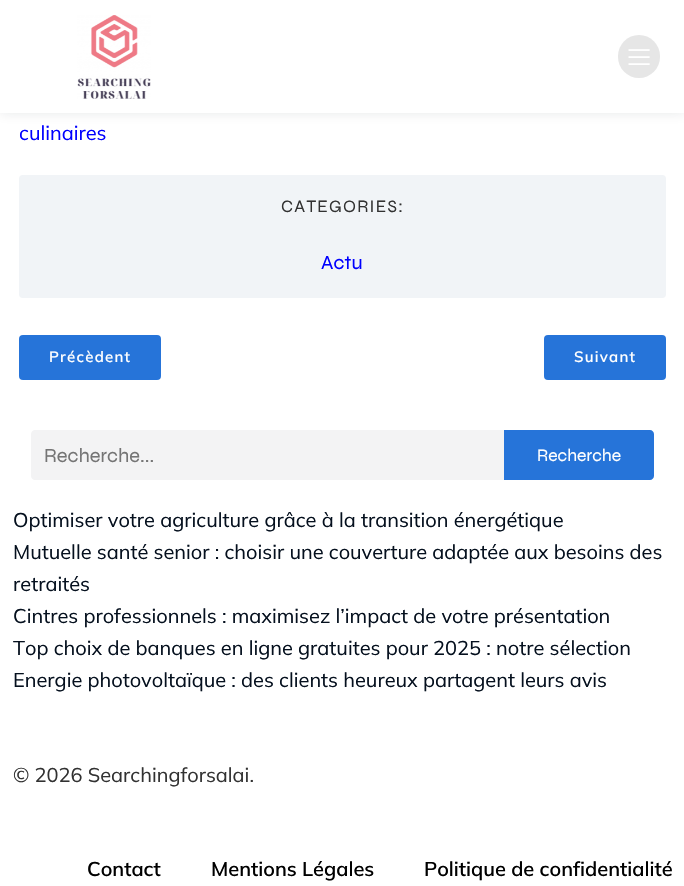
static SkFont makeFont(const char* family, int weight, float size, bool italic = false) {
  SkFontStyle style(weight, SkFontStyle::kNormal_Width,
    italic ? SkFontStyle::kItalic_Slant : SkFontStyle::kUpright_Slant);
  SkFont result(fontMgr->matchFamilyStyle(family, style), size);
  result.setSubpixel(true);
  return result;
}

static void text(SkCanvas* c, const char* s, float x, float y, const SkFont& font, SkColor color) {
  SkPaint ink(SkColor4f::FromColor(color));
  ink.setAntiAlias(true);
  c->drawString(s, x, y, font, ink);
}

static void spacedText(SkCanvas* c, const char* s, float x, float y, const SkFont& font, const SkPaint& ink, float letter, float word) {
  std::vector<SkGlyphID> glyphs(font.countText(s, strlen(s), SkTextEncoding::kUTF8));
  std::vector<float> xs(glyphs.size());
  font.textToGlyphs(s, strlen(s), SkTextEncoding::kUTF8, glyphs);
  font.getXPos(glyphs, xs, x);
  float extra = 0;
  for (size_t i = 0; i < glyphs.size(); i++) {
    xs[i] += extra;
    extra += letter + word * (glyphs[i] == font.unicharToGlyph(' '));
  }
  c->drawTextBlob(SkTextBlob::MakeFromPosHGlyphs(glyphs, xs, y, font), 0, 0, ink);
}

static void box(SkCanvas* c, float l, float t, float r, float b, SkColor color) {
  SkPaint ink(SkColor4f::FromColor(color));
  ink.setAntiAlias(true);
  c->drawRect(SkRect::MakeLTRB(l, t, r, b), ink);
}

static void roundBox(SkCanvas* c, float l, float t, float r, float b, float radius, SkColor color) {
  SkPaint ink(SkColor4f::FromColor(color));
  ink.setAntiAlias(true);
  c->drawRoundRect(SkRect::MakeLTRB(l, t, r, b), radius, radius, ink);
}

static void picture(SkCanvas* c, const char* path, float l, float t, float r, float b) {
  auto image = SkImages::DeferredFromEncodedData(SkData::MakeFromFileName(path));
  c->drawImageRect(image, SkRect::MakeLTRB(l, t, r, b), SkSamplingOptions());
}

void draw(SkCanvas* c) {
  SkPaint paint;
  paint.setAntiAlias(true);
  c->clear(0xffffffff);
  paint.setColor(0x1a171927);
  paint.setMaskFilter(SkMaskFilter::MakeBlur(kNormal_SkBlurStyle, 6));
  c->drawRect(SkRect::MakeLTRB(0, 0, 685, 113), paint);
  paint.setMaskFilter(nullptr);
  box(c, 0, 0, 684, 113, 0xffffffff);
  picture(c, "img_01.png", 77, 15, 151, 99);
  roundBox(c, 618, 35, 660, 78, 21, 0xffe6e6e6);
  picture(c, "img_02.png", 628, 49, 650, 65);
  SkFont face1 = makeFont("Mulish", 400, 20);
  text(c, "culinaires", 19, 140, face1, 0xff0000ff);
  roundBox(c, 19, 175, 666, 298, 4, 0xfff1f4f7);
  SkFont face2 = makeFont("Syne", 400, 17.5f);
  paint.setColor(0xff323232);
  spacedText(c, "CATEGORIES:", 281, 212, face2, paint, 1.25f, 0);
  SkFont face3 = makeFont("Syne", 400, 20);
  text(c, "Actu", 321, 269, face3, 0xff0000ff);
  roundBox(c, 19, 335, 161, 380, 4, 0xff2674d9);
  SkFont face4 = makeFont("Mulish", 600, 15);
  paint.setColor(0xffffffff);
  spacedText(c, "Précèdent", 49, 362, face4, paint, 1.25f, 0);
  roundBox(c, 544, 335, 666, 380, 4, 0xff2674d9);
  spacedText(c, "Suivant", 574, 362, face4, paint, 1.25f, 0);
  paint.setColor(0xfff3f3f4);
  c->drawPath(SkPathBuilder().moveTo(35, 430).lineTo(504, 430).lineTo(504, 480).lineTo(35, 480).cubicTo(33, 480, 31, 478, 31, 476).lineTo(31, 434).cubicTo(31, 432, 33, 430, 35, 430).close().detach(), paint);
  text(c, "Recherche...", 44, 462, face3, 0xff757575);
  paint.setColor(0xff2674d9);
  c->drawPath(SkPathBuilder().moveTo(504, 430).lineTo(650, 430).cubicTo(652, 430, 654, 432, 654, 434).lineTo(654, 476).cubicTo(654, 478, 652, 480, 650, 480).lineTo(504, 480).close().detach(), paint);
  text(c, "Recherche", 537, 461, face2, 0xffffffff);
  text(c, "Optimiser votre agriculture grâce à la transition énergétique", 13, 527, face1, 0xff05101e);
  text(c, "Mutuelle santé senior : choisir une couverture adaptée aux besoins des", 13, 559, face1, 0xff05101e);
  text(c, "retraités", 13, 591, face1, 0xff05101e);
  text(c, "Cintres professionnels : maximisez l’impact de votre présentation", 13, 623, face1, 0xff05101e);
  text(c, "Top choix de banques en ligne gratuites pour 2025 : notre sélection", 13, 655, face1, 0xff05101e);
  text(c, "Energie photovoltaïque : des clients heureux partagent leurs avis", 13, 687, face1, 0xff05101e);
  text(c, "© 2026 Searchingforsalai.", 13, 782, face1, 0xff323232);
  SkFont face5 = makeFont("Mulish", 600, 20);
  text(c, "Contact", 87, 876, face5, 0xff000000);
  text(c, "Mentions Légales", 211, 876, face5, 0xff000000);
  text(c, "Politique de confidentialité", 424, 876, face5, 0xff000000);
}
